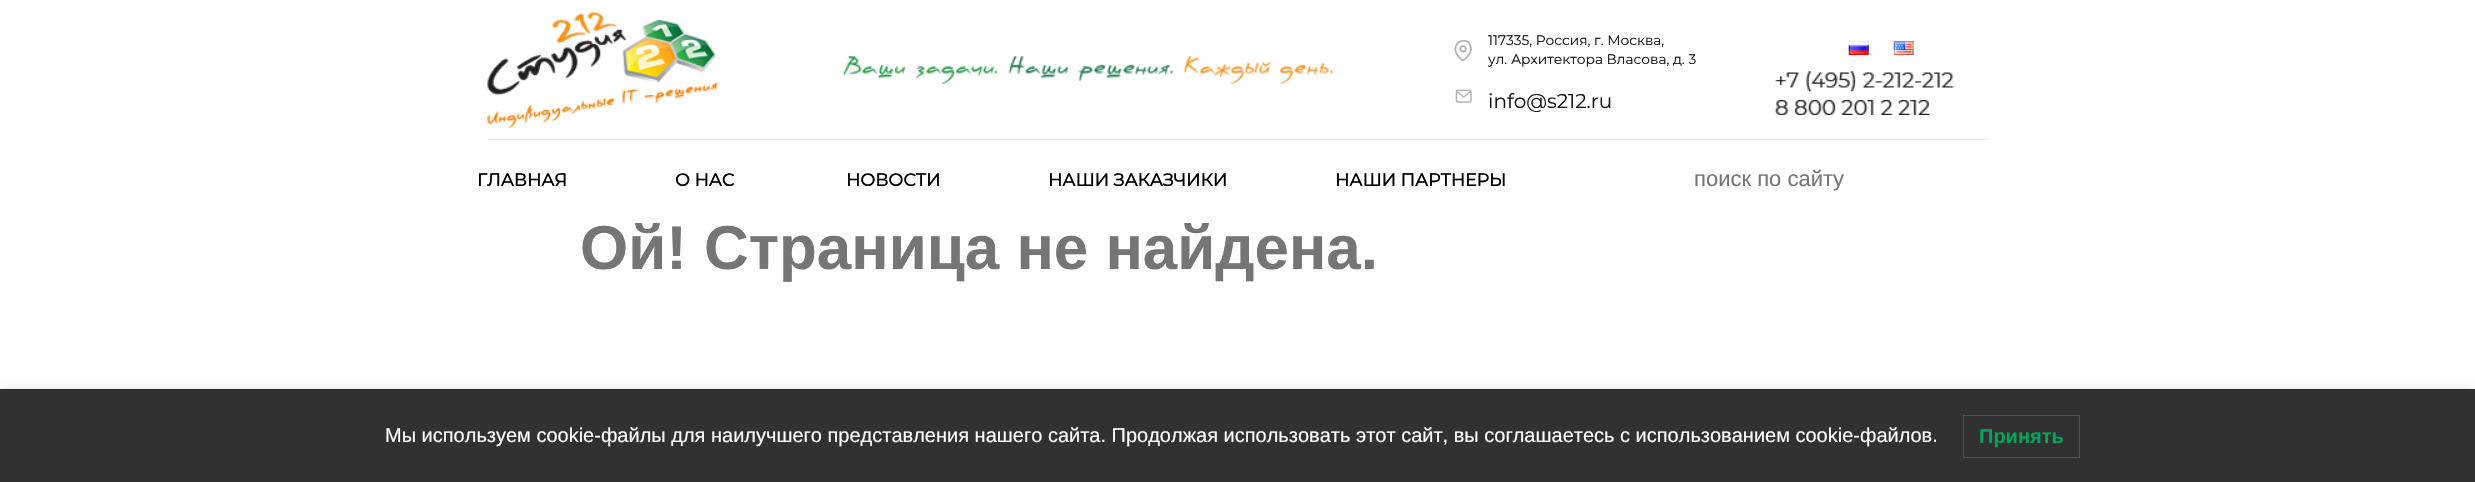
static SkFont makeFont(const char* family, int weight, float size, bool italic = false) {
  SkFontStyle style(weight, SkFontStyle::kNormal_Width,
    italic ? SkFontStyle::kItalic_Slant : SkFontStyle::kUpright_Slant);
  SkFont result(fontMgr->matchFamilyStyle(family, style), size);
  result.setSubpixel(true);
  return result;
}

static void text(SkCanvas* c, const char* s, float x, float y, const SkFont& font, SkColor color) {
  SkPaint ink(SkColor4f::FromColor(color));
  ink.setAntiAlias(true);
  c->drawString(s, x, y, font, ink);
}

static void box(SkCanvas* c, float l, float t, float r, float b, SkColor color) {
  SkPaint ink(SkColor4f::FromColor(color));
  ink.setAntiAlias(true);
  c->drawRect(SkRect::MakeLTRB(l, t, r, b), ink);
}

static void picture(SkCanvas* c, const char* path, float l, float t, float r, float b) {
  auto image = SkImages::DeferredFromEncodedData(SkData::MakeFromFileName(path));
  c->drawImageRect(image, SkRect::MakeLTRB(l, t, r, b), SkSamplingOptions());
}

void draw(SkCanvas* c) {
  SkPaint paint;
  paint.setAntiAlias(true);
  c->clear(0xffffffff);
  box(c, 488, 139, 1988, 140, 0xffe6e6e6);
  picture(c, "img_01.png", 487, 12, 718, 128);
  picture(c, "img_02.png", 843, 56, 1333, 84);
  c->save();
  c->clipRect(SkRect::MakeLTRB(1453, 40, 1474, 61));
  paint.setStyle(SkPaint::kStroke_Style);
  paint.setStrokeWidth(1.8f);
  paint.setStrokeCap(SkPaint::kRound_Cap);
  paint.setStrokeJoin(SkPaint::kRound_Join);
  paint.setColor(0xffb3b3b3);
  c->drawPath(SkPathBuilder().moveTo(1471, 49).cubicTo(1471, 55, 1463, 60.5f, 1463, 60.5f).cubicTo(1446.5f, 49, 1460.5f, 35, 1469, 43).cubicTo(1470, 44.5f, 1471, 47, 1471, 49).close().detach(), paint);
  c->restore();
  paint.setStrokeCap(SkPaint::kButt_Cap);
  paint.setStrokeJoin(SkPaint::kMiter_Join);
  c->drawCircle(1463.1f, 48.9f, 2.7f, paint);
  SkFont face1 = makeFont("Montserrat", 100, 13.75f);
  text(c, "117335, Россия, г. Москва,", 1488, 45, face1, 0xff111111);
  text(c, "ул. Архитектора Власова, д. 3", 1488, 64, face1, 0xff111111);
  picture(c, "img_03.png", 1455, 89, 1472, 103);
  SkFont face2 = makeFont("Montserrat", 100, 20);
  text(c, "info@s212.ru", 1488, 108, face2, 0xff111111);
  picture(c, "img_04.png", 1848, 41, 1869, 55);
  picture(c, "img_05.png", 1893, 41, 1914, 55);
  picture(c, "img_06.png", 1775, 71, 1954, 92);
  picture(c, "img_07.png", 1775, 100, 1930, 115);
  SkFont face3 = makeFont("Montserrat", 700, 17.5f);
  text(c, "ГЛАВНАЯ", 477, 186, face3, 0xff000000);
  text(c, "О НАС", 675, 186, face3, 0xff000000);
  text(c, "НОВОСТИ", 846, 186, face3, 0xff000000);
  text(c, "НАШИ ЗАКАЗЧИКИ", 1048, 186, face3, 0xff000000);
  text(c, "НАШИ ПАРТНЕРЫ", 1335, 186, face3, 0xff000000);
  SkFont face4 = makeFont("Liberation Sans", 400, 22);
  text(c, "поиск по сайту", 1694, 186, face4, 0xff757575);
  SkFont face5 = makeFont("Liberation Sans", 700, 61.9f);
  text(c, "Ой! Страница не найдена.", 580, 269, face5, 0xff757575);
  paint.setStyle(SkPaint::kFill_Style);
  paint.setColor(0x1a000000);
  paint.setMaskFilter(SkMaskFilter::MakeBlur(kNormal_SkBlurStyle, 5));
  c->drawRect(SkRect::MakeLTRB(0, 389, 2475, 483), paint);
  paint.setMaskFilter(nullptr);
  box(c, 0, 390, 2475, 482, 0xff313131);
  box(c, 0, 389, 2475, 390, 0xff2b2b2b);
  SkFont face6 = makeFont("Liberation Sans", 400, 20);
  text(c, "Мы используем cookie-файлы для наилучшего представления нашего сайта. Продолжая использовать этот сайт, вы соглашаетесь с использованием cookie-файлов.", 385, 442, face6, 0xffffffff);
  paint.setStyle(SkPaint::kStroke_Style);
  paint.setStrokeWidth(1);
  paint.setColor(0xff555555);
  c->drawRect(SkRect::MakeLTRB(1963.5f, 415.5f, 2079.5f, 457.5f), paint);
  SkFont face7 = makeFont("Liberation Sans", 700, 20);
  text(c, "Принять", 1979, 443, face7, 0xff00a65a);
}
